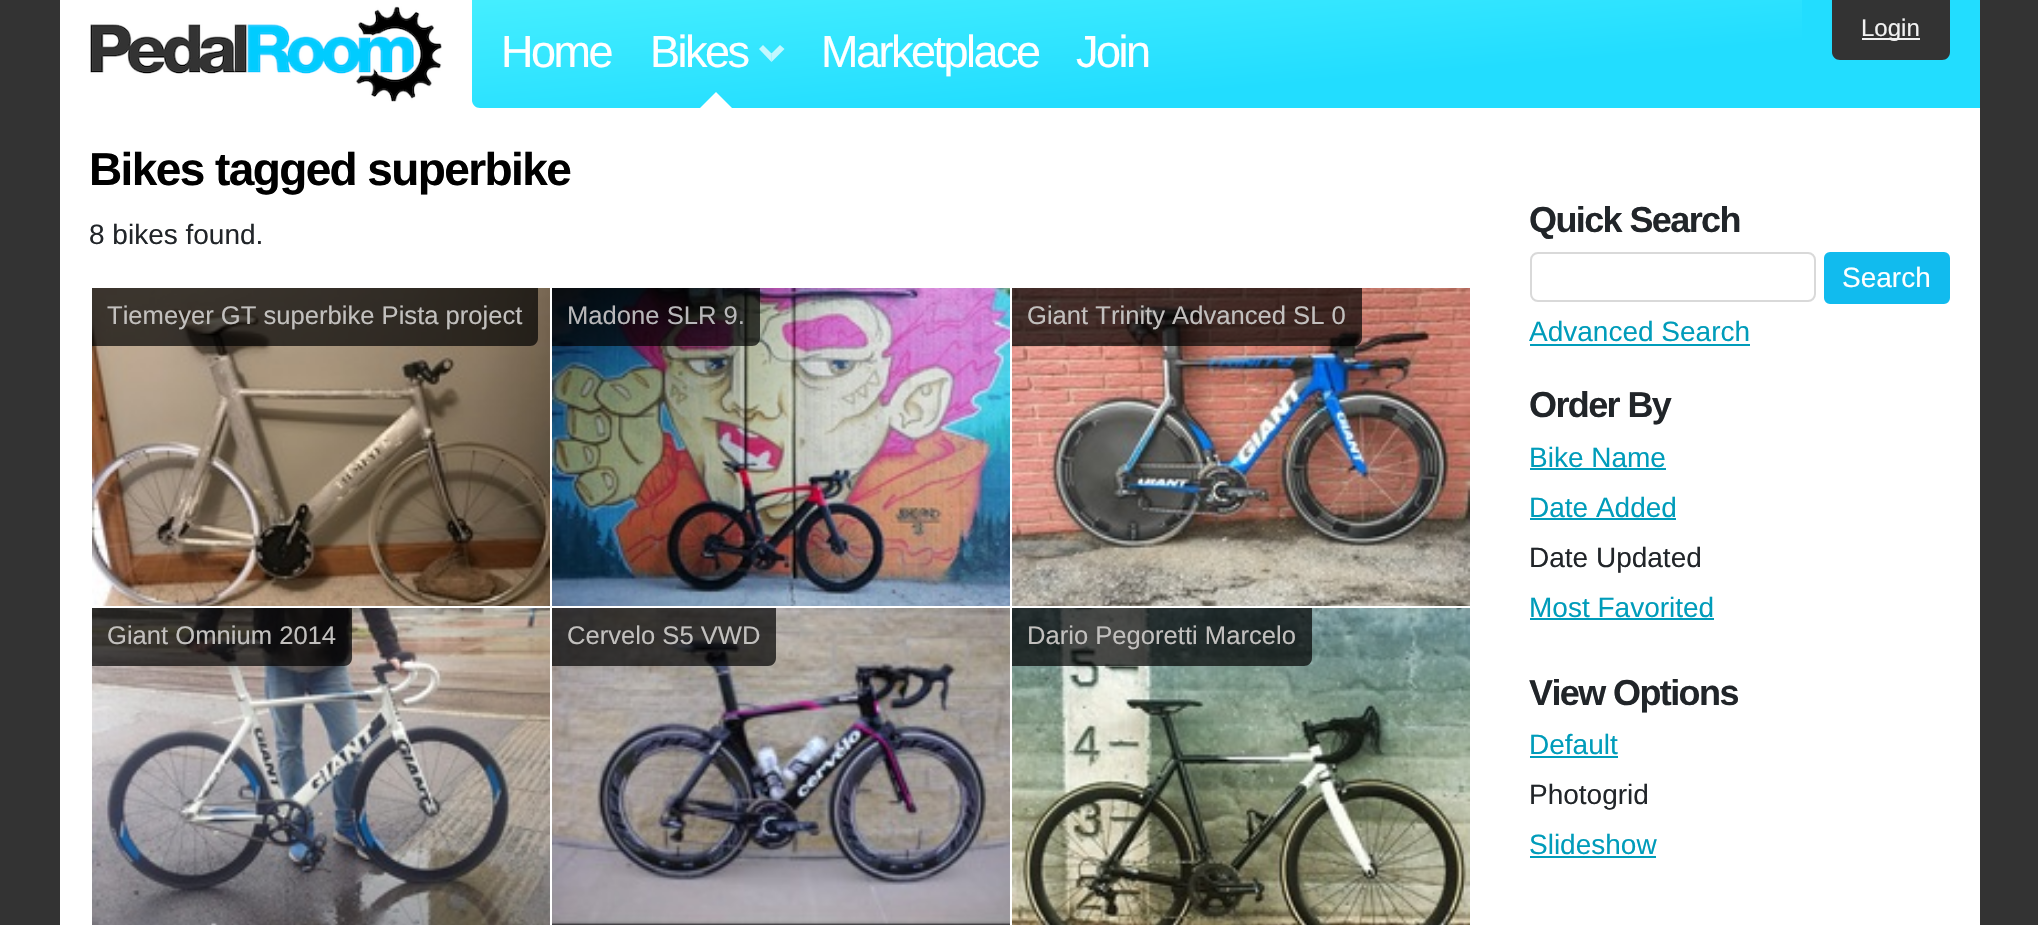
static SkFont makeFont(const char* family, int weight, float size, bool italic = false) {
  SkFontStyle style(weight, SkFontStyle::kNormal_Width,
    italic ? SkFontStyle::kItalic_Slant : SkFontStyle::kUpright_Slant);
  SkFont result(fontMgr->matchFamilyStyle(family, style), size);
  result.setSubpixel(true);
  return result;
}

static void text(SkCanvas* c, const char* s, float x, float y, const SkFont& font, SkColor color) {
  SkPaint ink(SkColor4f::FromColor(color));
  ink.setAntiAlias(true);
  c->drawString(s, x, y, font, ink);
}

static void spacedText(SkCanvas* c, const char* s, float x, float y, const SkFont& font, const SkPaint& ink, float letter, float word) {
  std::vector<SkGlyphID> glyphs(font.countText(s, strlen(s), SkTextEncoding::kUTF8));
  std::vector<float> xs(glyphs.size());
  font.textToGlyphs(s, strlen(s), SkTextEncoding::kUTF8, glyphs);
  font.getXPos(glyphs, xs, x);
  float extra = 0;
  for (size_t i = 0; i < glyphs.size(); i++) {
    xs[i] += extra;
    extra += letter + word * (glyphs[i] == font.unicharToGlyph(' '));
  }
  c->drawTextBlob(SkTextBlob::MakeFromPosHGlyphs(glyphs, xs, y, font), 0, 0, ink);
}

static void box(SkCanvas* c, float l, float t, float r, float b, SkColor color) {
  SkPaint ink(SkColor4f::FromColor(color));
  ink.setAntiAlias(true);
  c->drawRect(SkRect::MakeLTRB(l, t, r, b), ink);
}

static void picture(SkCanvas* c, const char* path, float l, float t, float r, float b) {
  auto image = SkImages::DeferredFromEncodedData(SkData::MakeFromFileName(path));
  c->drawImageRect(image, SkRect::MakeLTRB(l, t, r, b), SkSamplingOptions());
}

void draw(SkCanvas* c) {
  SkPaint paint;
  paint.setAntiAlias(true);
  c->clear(0xff333333);
  box(c, 60, 0, 1980, 925, 0xffffffff);
  picture(c, "img_01.png", 90, 6, 442, 102);
  box(c, 1802, 0, 1980, 108, 0xff22ddff);
  paint.setColor(0xff333333);
  c->drawPath(SkPathBuilder().moveTo(1832, 0).lineTo(1950, 0).lineTo(1950, 52).cubicTo(1950, 56.5f, 1946.5f, 60, 1942, 60).lineTo(1840, 60).cubicTo(1835.5f, 60, 1832, 56.5f, 1832, 52).close().detach(), paint);
  box(c, 1862, 38, 1920, 40, 0xfff2f2f2);
  SkFont face1 = makeFont("Liberation Sans", 400, 24);
  text(c, "Login", 1861, 36, face1, 0xfff2f2f2);
  {
    const SkColor colors[] = {0xff44eeff, 0xff22ddff};
    const float stops[] = {0, 0.7f};
    const SkPoint ends[] = {{1128, -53}, {1146, 161}};
    paint.setShader(SkGradientShader::MakeLinear(ends, colors, stops, 2, SkTileMode::kClamp));
    paint.setAlpha(255);
  }
  c->drawPath(SkPathBuilder().moveTo(472, 0).lineTo(1802, 0).lineTo(1802, 108).lineTo(480, 108).cubicTo(475.5f, 108, 472, 104.5f, 472, 100).close().detach(), paint);
  SkFont face2 = makeFont("Liberation Sans", 400, 45);
  paint.setShader(nullptr);
  paint.setColor(0xffffffff);
  spacedText(c, "Home", 501, 67, face2, paint, -2.5f, 0);
  spacedText(c, "Bikes", 650, 67, face2, paint, -2.5f, 0);
  paint.setColor(0xb3ffffff);
  c->drawPath(SkPathBuilder().moveTo(784.5f, 49).lineTo(771.5f, 62).lineTo(771.5f, 53.5f).lineTo(780, 45).close().detach(), paint);
  c->drawPath(SkPathBuilder().moveTo(771.5f, 62).lineTo(759, 49).lineTo(763, 45).lineTo(771.5f, 53.5f).close().detach(), paint);
  paint.setColor(0xffffffff);
  c->drawPath(SkPathBuilder().moveTo(732, 108).lineTo(700, 108).lineTo(716, 92).close().detach(), paint);
  spacedText(c, "Marketplace", 821, 67, face2, paint, -2.5f, 0);
  spacedText(c, "Join", 1076, 67, face2, paint, -2.5f, 0);
  SkFont face3 = makeFont("Liberation Sans", 700, 46);
  paint.setColor(0xff000000);
  spacedText(c, "Bikes tagged superbike", 89, 185, face3, paint, -1.6f, 0);
  SkFont face4 = makeFont("Liberation Sans", 400, 28);
  text(c, "8 bikes found.", 89, 244, face4, 0xff212529);
  picture(c, "img_02.png", 92, 288, 550, 606);
  paint.setColor(0xb3000000);
  c->drawPath(SkPathBuilder().moveTo(92, 288).lineTo(538, 288).lineTo(538, 338).cubicTo(538, 342.5f, 534.5f, 346, 530, 346).lineTo(92, 346).close().detach(), paint);
  SkFont face5 = makeFont("Liberation Sans", 400, 25.6f);
  text(c, "Tiemeyer GT superbike Pista project", 107, 324, face5, 0xffc2c0be);
  picture(c, "img_03.png", 552, 288, 1010, 606);
  c->drawPath(SkPathBuilder().moveTo(552, 288).lineTo(760, 288).lineTo(760, 338).cubicTo(760, 342.5f, 756.5f, 346, 752, 346).lineTo(552, 346).close().detach(), paint);
  text(c, "Madone SLR 9.", 567, 324, face5, 0xffb8b7b9);
  picture(c, "img_04.png", 1012, 288, 1470, 606);
  c->drawPath(SkPathBuilder().moveTo(1012, 288).lineTo(1362, 288).lineTo(1362, 338).cubicTo(1362, 342.5f, 1358.5f, 346, 1354, 346).lineTo(1012, 346).close().detach(), paint);
  text(c, "Giant Trinity Advanced SL 0", 1027, 324, face5, 0xffc2c0be);
  picture(c, "img_05.png", 92, 608, 550, 925);
  c->drawPath(SkPathBuilder().moveTo(92, 608).lineTo(352, 608).lineTo(352, 658).cubicTo(352, 662.5f, 348.5f, 666, 344, 666).lineTo(92, 666).close().detach(), paint);
  text(c, "Giant Omnium 2014", 107, 644, face5, 0xffc2c0be);
  picture(c, "img_06.png", 552, 608, 1010, 925);
  c->drawPath(SkPathBuilder().moveTo(552, 608).lineTo(776, 608).lineTo(776, 658).cubicTo(776, 662.5f, 772.5f, 666, 768, 666).lineTo(552, 666).close().detach(), paint);
  text(c, "Cervelo S5 VWD", 567, 644, face5, 0xffc2c0be);
  picture(c, "img_07.png", 1012, 608, 1470, 925);
  c->drawPath(SkPathBuilder().moveTo(1012, 608).lineTo(1312, 608).lineTo(1312, 658).cubicTo(1312, 662.5f, 1308.5f, 666, 1304, 666).lineTo(1012, 666).close().detach(), paint);
  text(c, "Dario Pegoretti Marcelo", 1027, 644, face5, 0xffc2c0be);
  SkFont face6 = makeFont("Liberation Sans", 700, 36);
  paint.setColor(0xff212529);
  spacedText(c, "Quick Search", 1529, 232, face6, paint, -1.6f, 0);
  paint.setStyle(SkPaint::kStroke_Style);
  paint.setStrokeWidth(2);
  paint.setColor(0xffd9d9d9);
  c->drawRoundRect(SkRect::MakeLTRB(1531, 253, 1815, 301), 7, 7, paint);
  paint.setStyle(SkPaint::kFill_Style);
  paint.setColor(0xff11bbee);
  c->drawRoundRect(SkRect::MakeLTRB(1825, 253, 1949, 303), 5, 5, paint);
  paint.setStyle(SkPaint::kStroke_Style);
  c->drawRoundRect(SkRect::MakeLTRB(1825, 253, 1949, 303), 5, 5, paint);
  text(c, "Search", 1842, 287, face4, 0xffffffff);
  text(c, "Advanced Search", 1529, 341, face4, 0xff009cba);
  box(c, 1530, 344, 1750, 346, 0xff009cba);
  paint.setStyle(SkPaint::kFill_Style);
  paint.setColor(0xff212529);
  spacedText(c, "Order By", 1529, 417, face6, paint, -1.6f, 0);
  text(c, "Bike Name", 1529, 467, face4, 0xff009cba);
  box(c, 1530, 468, 1666, 470, 0xff009cba);
  text(c, "Date Added", 1529, 517, face4, 0xff009cba);
  box(c, 1530, 518, 1676, 520, 0xff009cba);
  text(c, "Date Updated", 1529, 567, face4, 0xff212529);
  text(c, "Most Favorited", 1529, 617, face4, 0xff009cba);
  box(c, 1530, 618, 1714, 620, 0xff009cba);
  spacedText(c, "View Options", 1529, 705, face6, paint, -1.6f, 0);
  text(c, "Default", 1529, 754, face4, 0xff009cba);
  box(c, 1530, 756, 1618, 758, 0xff009cba);
  text(c, "Photogrid", 1529, 804, face4, 0xff212529);
  text(c, "Slideshow", 1529, 854, face4, 0xff009cba);
  box(c, 1530, 856, 1656, 858, 0xff009cba);
}
